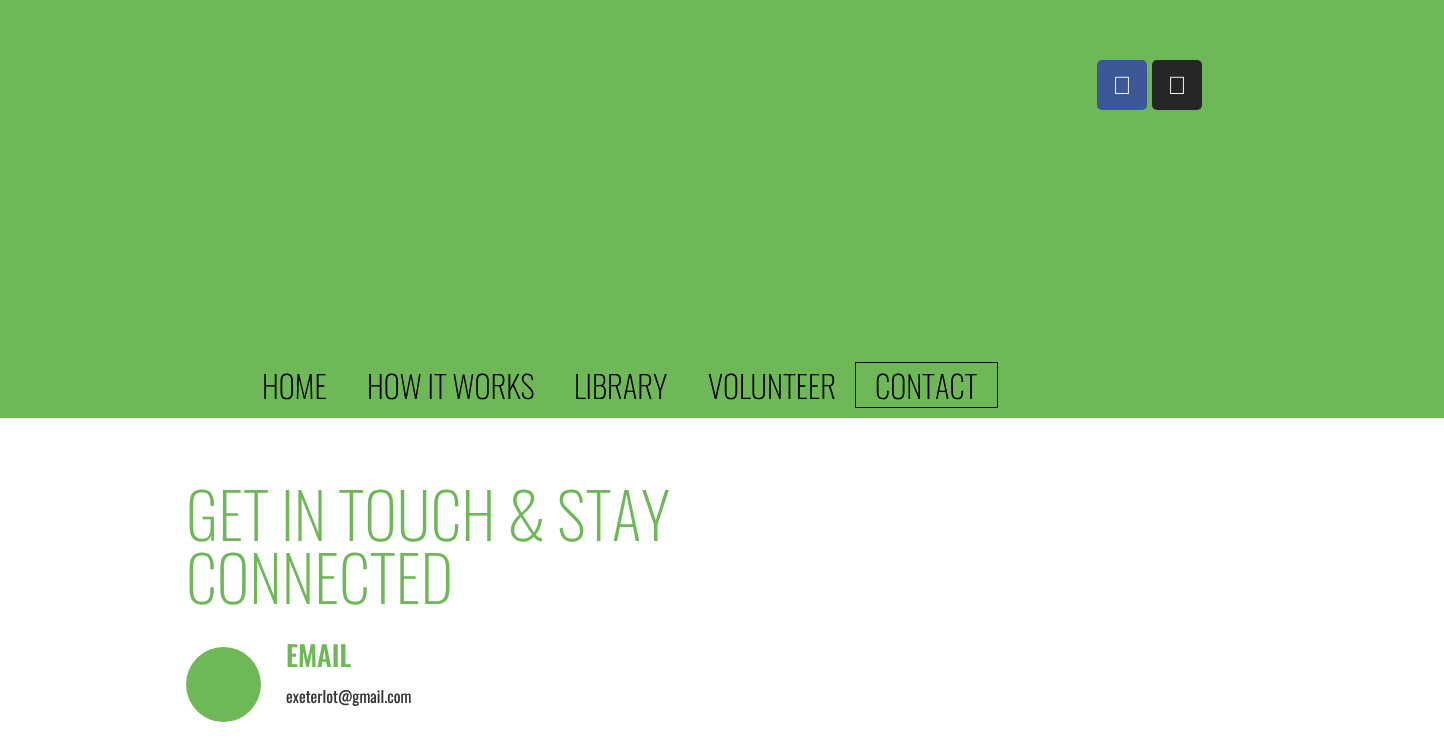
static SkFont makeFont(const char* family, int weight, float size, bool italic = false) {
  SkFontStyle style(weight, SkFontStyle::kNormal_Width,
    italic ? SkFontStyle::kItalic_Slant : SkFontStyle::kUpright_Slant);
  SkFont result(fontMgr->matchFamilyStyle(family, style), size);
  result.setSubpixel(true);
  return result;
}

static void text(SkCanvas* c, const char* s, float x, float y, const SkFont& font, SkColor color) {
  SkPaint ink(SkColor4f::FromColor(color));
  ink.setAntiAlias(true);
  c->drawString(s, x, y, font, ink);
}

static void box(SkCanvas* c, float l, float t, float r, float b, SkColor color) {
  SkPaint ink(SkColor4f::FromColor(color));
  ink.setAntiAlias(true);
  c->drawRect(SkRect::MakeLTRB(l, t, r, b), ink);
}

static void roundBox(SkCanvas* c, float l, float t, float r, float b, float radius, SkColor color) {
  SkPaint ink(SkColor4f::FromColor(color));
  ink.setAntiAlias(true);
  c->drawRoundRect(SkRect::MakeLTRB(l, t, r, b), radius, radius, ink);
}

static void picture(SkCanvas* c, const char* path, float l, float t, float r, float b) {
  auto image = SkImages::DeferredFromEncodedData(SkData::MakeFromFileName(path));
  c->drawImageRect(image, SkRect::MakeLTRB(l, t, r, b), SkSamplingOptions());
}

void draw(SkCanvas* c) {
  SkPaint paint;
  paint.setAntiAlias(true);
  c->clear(0xffffffff);
  box(c, 0, 0, 1444, 418, 0xff6eb857);
  roundBox(c, 1097, 60, 1147, 110, 5, 0xff3b5998);
  picture(c, "img_01.png", 1115, 76, 1129, 94);
  roundBox(c, 1152, 60, 1202, 110, 5, 0xff262626);
  picture(c, "img_02.png", 1170, 76, 1184, 94);
  SkFont face1 = makeFont("Oswald", 200, 31);
  text(c, "HOME", 262, 399, face1, 0xff000000);
  text(c, "HOW IT WORKS", 367, 399, face1, 0xff000000);
  text(c, "LIBRARY", 574, 399, face1, 0xff000000);
  text(c, "VOLUNTEER", 708, 399, face1, 0xff000000);
  paint.setStyle(SkPaint::kStroke_Style);
  paint.setStrokeWidth(1);
  paint.setColor(0xff000000);
  c->drawRect(SkRect::MakeLTRB(855.5f, 362.5f, 997.5f, 407.5f), paint);
  text(c, "CONTACT", 875, 399, face1, 0xff000000);
  SkFont face2 = makeFont("Oswald", 200, 63);
  text(c, "GET IN TOUCH & STAY", 186, 541, face2, 0xff6eb857);
  text(c, "CONNECTED", 186, 604, face2, 0xff6eb857);
  paint.setStyle(SkPaint::kFill_Style);
  paint.setColor(0xff6eb857);
  c->drawCircle(223.5f, 684.5f, 37.5f, paint);
  SkFont face3 = makeFont("Oswald", 500, 28);
  text(c, "EMAIL", 286, 667, face3, 0xff6eb857);
  SkFont face4 = makeFont("Oswald", 400, 16);
  text(c, "exeterlot@gmail.com", 286, 703, face4, 0xff353535);
}
